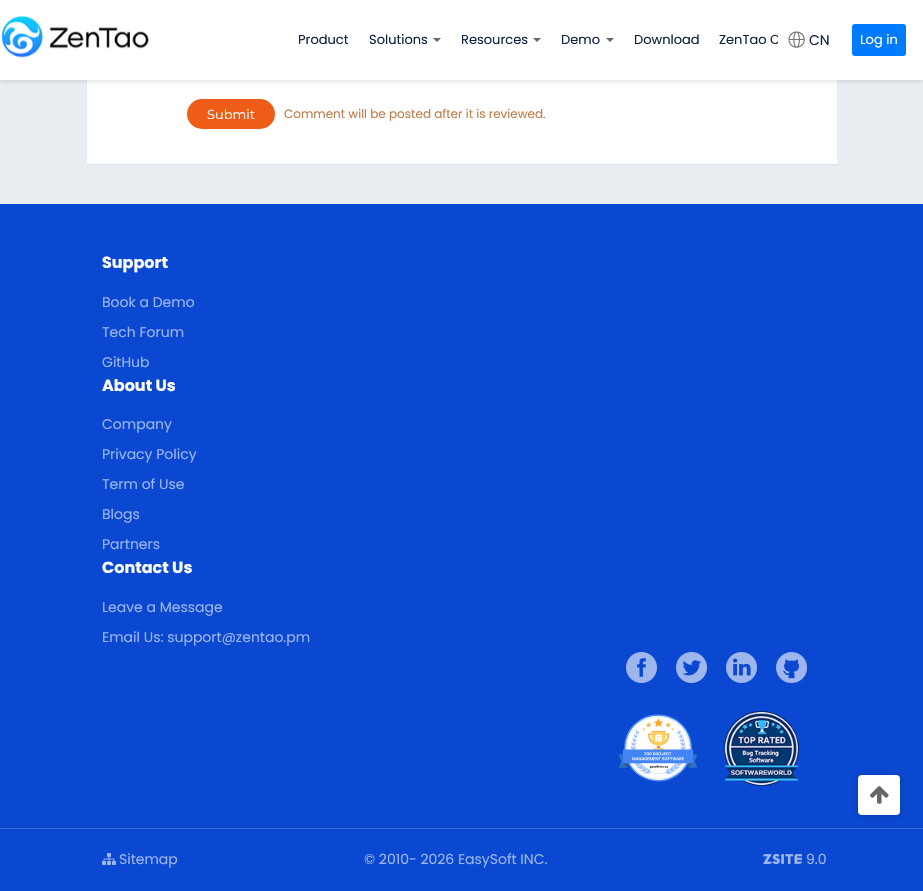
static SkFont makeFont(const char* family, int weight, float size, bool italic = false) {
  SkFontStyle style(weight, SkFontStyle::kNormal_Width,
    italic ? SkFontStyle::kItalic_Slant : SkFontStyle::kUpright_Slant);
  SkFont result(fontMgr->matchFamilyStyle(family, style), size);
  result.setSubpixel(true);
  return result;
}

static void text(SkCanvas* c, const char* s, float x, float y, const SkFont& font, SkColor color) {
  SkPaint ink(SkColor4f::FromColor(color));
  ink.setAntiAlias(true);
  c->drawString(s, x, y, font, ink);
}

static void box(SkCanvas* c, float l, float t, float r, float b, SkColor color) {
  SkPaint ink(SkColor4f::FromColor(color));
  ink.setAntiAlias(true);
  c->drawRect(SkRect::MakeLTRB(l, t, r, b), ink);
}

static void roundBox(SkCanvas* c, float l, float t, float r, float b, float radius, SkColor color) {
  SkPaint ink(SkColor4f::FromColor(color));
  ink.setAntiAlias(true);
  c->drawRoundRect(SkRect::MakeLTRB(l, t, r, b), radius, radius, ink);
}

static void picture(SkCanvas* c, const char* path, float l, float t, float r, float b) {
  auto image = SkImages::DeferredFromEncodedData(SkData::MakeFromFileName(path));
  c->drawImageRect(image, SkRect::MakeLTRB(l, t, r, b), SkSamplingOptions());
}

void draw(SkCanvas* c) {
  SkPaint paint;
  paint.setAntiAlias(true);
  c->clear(0xffeaeef3);
  paint.setColor(0x0d000000);
  paint.setMaskFilter(SkMaskFilter::MakeBlur(kNormal_SkBlurStyle, 0.5f));
  c->drawRect(SkRect::MakeLTRB(87, -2, 837, 165), paint);
  paint.setMaskFilter(nullptr);
  box(c, 87, 80, 837, 164, 0xffffffff);
  paint.setColor(0x1a000000);
  paint.setMaskFilter(SkMaskFilter::MakeBlur(kNormal_SkBlurStyle, 2));
  c->drawRect(SkRect::MakeLTRB(0, 2, 923, 82), paint);
  paint.setMaskFilter(nullptr);
  box(c, 0, 0, 923, 80, 0xffffffff);
  picture(c, "img_01.png", 1, 15, 149, 58);
  SkFont face1 = makeFont("Poppins", 400, 13);
  text(c, "Product", 298, 44, face1, 0xff0c2243);
  text(c, "Solutions", 369, 44, face1, 0xff0c2243);
  paint.setColor(0xff666666);
  c->drawPath(SkPathBuilder().moveTo(433, 38).lineTo(441, 38).lineTo(437, 42).close().detach(), paint);
  text(c, "Resources", 461, 44, face1, 0xff0c2243);
  c->drawPath(SkPathBuilder().moveTo(533, 38).lineTo(541, 38).lineTo(537, 42).close().detach(), paint);
  text(c, "Demo", 561, 44, face1, 0xff0c2243);
  c->drawPath(SkPathBuilder().moveTo(606, 38).lineTo(614, 38).lineTo(610, 42).close().detach(), paint);
  text(c, "Download", 634, 44, face1, 0xff0c2243);
  c->save();
  c->clipRect(SkRect::MakeLTRB(288, 0, 778, 80));
  text(c, "ZenTao C", 719, 44, face1, 0xff0c2243);
  c->restore();
  picture(c, "img_02.png", 788, 31, 805, 48);
  SkFont face2 = makeFont("Poppins", 400, 14);
  text(c, "CN", 809, 45, face2, 0xff0c2243);
  roundBox(c, 852, 24, 906, 56, 3, 0xff007aff);
  text(c, "Log in", 860, 44, face1, 0xffffffff);
  roundBox(c, 187, 99, 275, 129, 15, 0xffed5d18);
  SkFont face3 = makeFont("Montserrat", 400, 13);
  text(c, "Submit", 207, 119, face3, 0xffffffff);
  SkFont face4 = makeFont("Poppins", 400, 12);
  text(c, "Comment will be posted after it is reviewed.", 284, 118, face4, 0xffbd7b46);
  box(c, 0, 204, 923, 828, 0xff0a48d1);
  SkFont face5 = makeFont("Poppins", 700, 16);
  text(c, "Support", 102, 268, face5, 0xffffffff);
  text(c, "Book a Demo", 102, 307, face2, 0xff9db6ed);
  text(c, "Tech Forum", 102, 337, face2, 0xff9db6ed);
  text(c, "GitHub", 102, 367, face2, 0xff9db6ed);
  text(c, "About Us", 102, 391, face5, 0xffffffff);
  text(c, "Company", 102, 429, face2, 0xff9db6ed);
  text(c, "Privacy Policy", 102, 459, face2, 0xff9db6ed);
  text(c, "Term of Use", 102, 489, face2, 0xff9db6ed);
  text(c, "Blogs", 102, 519, face2, 0xff9db6ed);
  text(c, "Partners", 102, 549, face2, 0xff9db6ed);
  text(c, "Contact Us", 102, 573, face5, 0xffffffff);
  text(c, "Leave a Message", 102, 612, face2, 0xff9db6ed);
  text(c, "Email Us: support@zentao.pm", 102, 642, face2, 0xff9db6ed);
  picture(c, "img_03.png", 626, 652, 657, 683);
  picture(c, "img_04.png", 676, 652, 707, 683);
  picture(c, "img_05.png", 726, 652, 757, 683);
  picture(c, "img_06.png", 776, 652, 807, 683);
  picture(c, "img_07.png", 618, 714, 698, 782);
  picture(c, "img_08.png", 723, 710, 800, 787);
  paint.setColor(0x33000000);
  paint.setMaskFilter(SkMaskFilter::MakeBlur(kNormal_SkBlurStyle, 3));
  c->drawRoundRect(SkRect::MakeLTRB(858, 776, 900, 816), 4, 4, paint);
  paint.setMaskFilter(nullptr);
  roundBox(c, 858, 775, 900, 815, 4, 0xffffffff);
  picture(c, "img_09.png", 870, 786, 889, 804);
  box(c, 0, 829, 923, 891, 0xff0a48d1);
  box(c, 0, 828, 923, 829, 0xff3b6dda);
  picture(c, "img_10.png", 102, 853, 116, 865);
  text(c, "Sitemap", 119, 864, face2, 0xff9db6ed);
  text(c, "© 2010- 2026 EasySoft INC.", 364, 864, face2, 0xff9db6ed);
  picture(c, "img_11.png", 763, 854, 802, 864);
  text(c, "9.0", 806, 864, face2, 0xff9db6ed);
}
